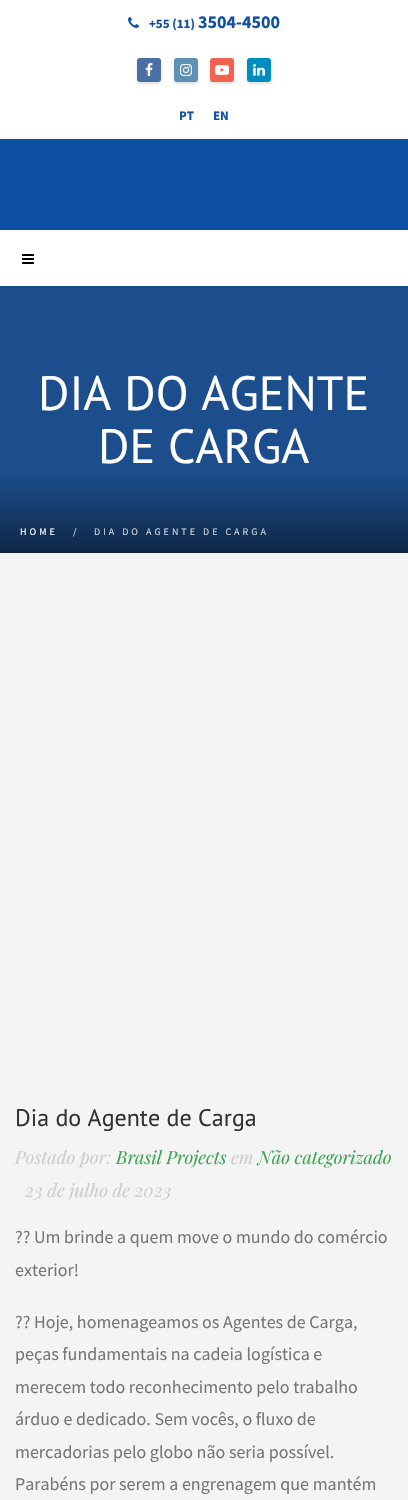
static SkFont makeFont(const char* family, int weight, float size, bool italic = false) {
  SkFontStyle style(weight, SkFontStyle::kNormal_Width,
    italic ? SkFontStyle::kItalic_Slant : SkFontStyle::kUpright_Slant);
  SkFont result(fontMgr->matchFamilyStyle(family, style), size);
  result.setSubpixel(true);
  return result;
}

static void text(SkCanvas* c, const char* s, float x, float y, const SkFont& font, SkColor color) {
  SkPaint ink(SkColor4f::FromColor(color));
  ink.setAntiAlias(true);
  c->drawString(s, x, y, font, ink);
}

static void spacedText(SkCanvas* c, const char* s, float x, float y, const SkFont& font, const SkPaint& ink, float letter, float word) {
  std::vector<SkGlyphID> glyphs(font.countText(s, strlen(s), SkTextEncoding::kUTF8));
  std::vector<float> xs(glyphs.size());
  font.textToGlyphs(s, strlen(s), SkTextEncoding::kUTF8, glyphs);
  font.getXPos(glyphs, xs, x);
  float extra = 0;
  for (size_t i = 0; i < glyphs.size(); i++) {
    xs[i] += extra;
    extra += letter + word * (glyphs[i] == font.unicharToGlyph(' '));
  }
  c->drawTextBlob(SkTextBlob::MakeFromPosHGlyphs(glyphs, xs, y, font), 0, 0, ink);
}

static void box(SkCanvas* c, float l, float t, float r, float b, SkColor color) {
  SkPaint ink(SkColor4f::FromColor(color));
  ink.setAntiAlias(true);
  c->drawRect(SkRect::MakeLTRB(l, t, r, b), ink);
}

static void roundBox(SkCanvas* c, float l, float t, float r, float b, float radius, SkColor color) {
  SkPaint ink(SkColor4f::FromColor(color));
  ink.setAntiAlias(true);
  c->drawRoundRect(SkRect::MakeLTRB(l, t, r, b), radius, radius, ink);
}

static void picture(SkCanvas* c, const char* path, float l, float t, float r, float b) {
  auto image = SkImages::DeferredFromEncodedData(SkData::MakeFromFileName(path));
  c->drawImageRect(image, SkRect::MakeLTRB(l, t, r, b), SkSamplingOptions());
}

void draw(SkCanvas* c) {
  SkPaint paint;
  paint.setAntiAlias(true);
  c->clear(0xfff4f4f4);
  box(c, 0, 0, 408, 139, 0xffffffff);
  picture(c, "img_01.png", 128, 17, 139, 28);
  SkFont face1 = makeFont("Source Sans Pro", 700, 13);
  text(c, "+55 (11)", 149, 28, face1, 0xff1051a3);
  SkFont face2 = makeFont("Source Sans Pro", 700, 18);
  text(c, "3504-4500", 198, 28, face2, 0xff1051a3);
  paint.setColor(0x1f000000);
  paint.setMaskFilter(SkMaskFilter::MakeBlur(kNormal_SkBlurStyle, 1.5f));
  c->drawRoundRect(SkRect::MakeLTRB(137, 60, 161, 84), 3, 3, paint);
  paint.setMaskFilter(nullptr);
  roundBox(c, 137, 58, 161, 82, 3, 0xff496fa4);
  picture(c, "img_02.png", 145, 63, 153, 76);
  paint.setMaskFilter(SkMaskFilter::MakeBlur(kNormal_SkBlurStyle, 1.5f));
  c->drawRoundRect(SkRect::MakeLTRB(174, 60, 198, 84), 3, 3, paint);
  paint.setMaskFilter(nullptr);
  roundBox(c, 174, 58, 198, 82, 3, 0xff5f92b2);
  picture(c, "img_03.png", 180, 64, 192, 76);
  paint.setMaskFilter(SkMaskFilter::MakeBlur(kNormal_SkBlurStyle, 1.5f));
  c->drawRoundRect(SkRect::MakeLTRB(210, 60, 234, 84), 3, 3, paint);
  paint.setMaskFilter(nullptr);
  roundBox(c, 210, 58, 234, 82, 3, 0xfff36251);
  picture(c, "img_04.png", 215, 65, 229, 75);
  paint.setMaskFilter(SkMaskFilter::MakeBlur(kNormal_SkBlurStyle, 1.5f));
  c->drawRoundRect(SkRect::MakeLTRB(247, 60, 271, 84), 3, 3, paint);
  paint.setMaskFilter(nullptr);
  roundBox(c, 247, 58, 271, 82, 3, 0xff008ec1);
  picture(c, "img_05.png", 253, 64, 265, 76);
  text(c, "PT", 179, 120, face1, 0xff1051a3);
  text(c, "EN", 213, 120, face1, 0xff1051a3);
  box(c, 0, 139, 408, 230, 0xff0c4fa3);
  box(c, 0, 230, 408, 286, 0xffffffff);
  picture(c, "img_06.png", 22, 254, 34, 264);
  box(c, 0, 286, 408, 552, 0xff1c4d8c);
  box(c, 0, 552, 408, 553, 0xff19457e);
  SkFont face3 = makeFont("PT Sans", 400, 48);
  text(c, "DIA DO AGENTE", 38, 410, face3, 0xffffffff);
  text(c, "DE CARGA", 98, 463, face3, 0xffffffff);
  {
    const SkColor colors[] = {0x00000000, 0x80000000};
    const float stops[] = {0, 1};
    const SkPoint ends[] = {{204, 473}, {204, 553}};
    paint.setShader(SkGradientShader::MakeLinear(ends, colors, stops, 2, SkTileMode::kClamp));
    paint.setAlpha(255);
  }
  c->drawRect(SkRect::MakeLTRB(0, 476, 408, 553), paint);
  SkFont face4 = makeFont("Source Sans Pro", 400, 10);
  paint.setShader(nullptr);
  paint.setColor(0xffffffff);
  spacedText(c, "HOME", 20, 535, face4, paint, 3, 0);
  paint.setColor(0xffd0d6de);
  spacedText(c, "/", 73, 535, face4, paint, 3, 0);
  spacedText(c, "DIA DO AGENTE DE CARGA", 94, 535, face4, paint, 3, 0);
  SkFont face5 = makeFont("PT Sans", 400, 24);
  text(c, "Dia do Agente de Carga", 15, 1126, face5, 0xff333333);
  SkFont face6 = makeFont("Playfair Display", 400, 18, true);
  text(c, "Postado por:", 15, 1164, face6, 0xffcccccc);
  text(c, "Brasil Projects", 116, 1164, face6, 0xff3aa451);
  text(c, "em", 231, 1164, face6, 0xffcccccc);
  text(c, "Não categorizado", 258, 1164, face6, 0xff3aa451);
  text(c, "23 de julho de 2023", 25, 1197, face6, 0xffcccccc);
  SkFont face7 = makeFont("Source Sans Pro", 400, 18);
  text(c, "?\077 Um brinde a quem move o mundo do comércio", 15, 1243, face7, 0xff777777);
  text(c, "exterior!", 15, 1276, face7, 0xff777777);
  text(c, "?\077 Hoje, homenageamos os Agentes de Carga,", 15, 1328, face7, 0xff777777);
  text(c, "peças fundamentais na cadeia logística e", 15, 1360, face7, 0xff777777);
  text(c, "merecem todo reconhecimento pelo trabalho", 15, 1393, face7, 0xff777777);
  text(c, "árduo e dedicado. Sem vocês, o fluxo de", 15, 1425, face7, 0xff777777);
  text(c, "mercadorias pelo globo não seria possível.", 15, 1458, face7, 0xff777777);
  text(c, "Parabéns por serem a engrenagem que mantém", 15, 1490, face7, 0xff777777);
}
